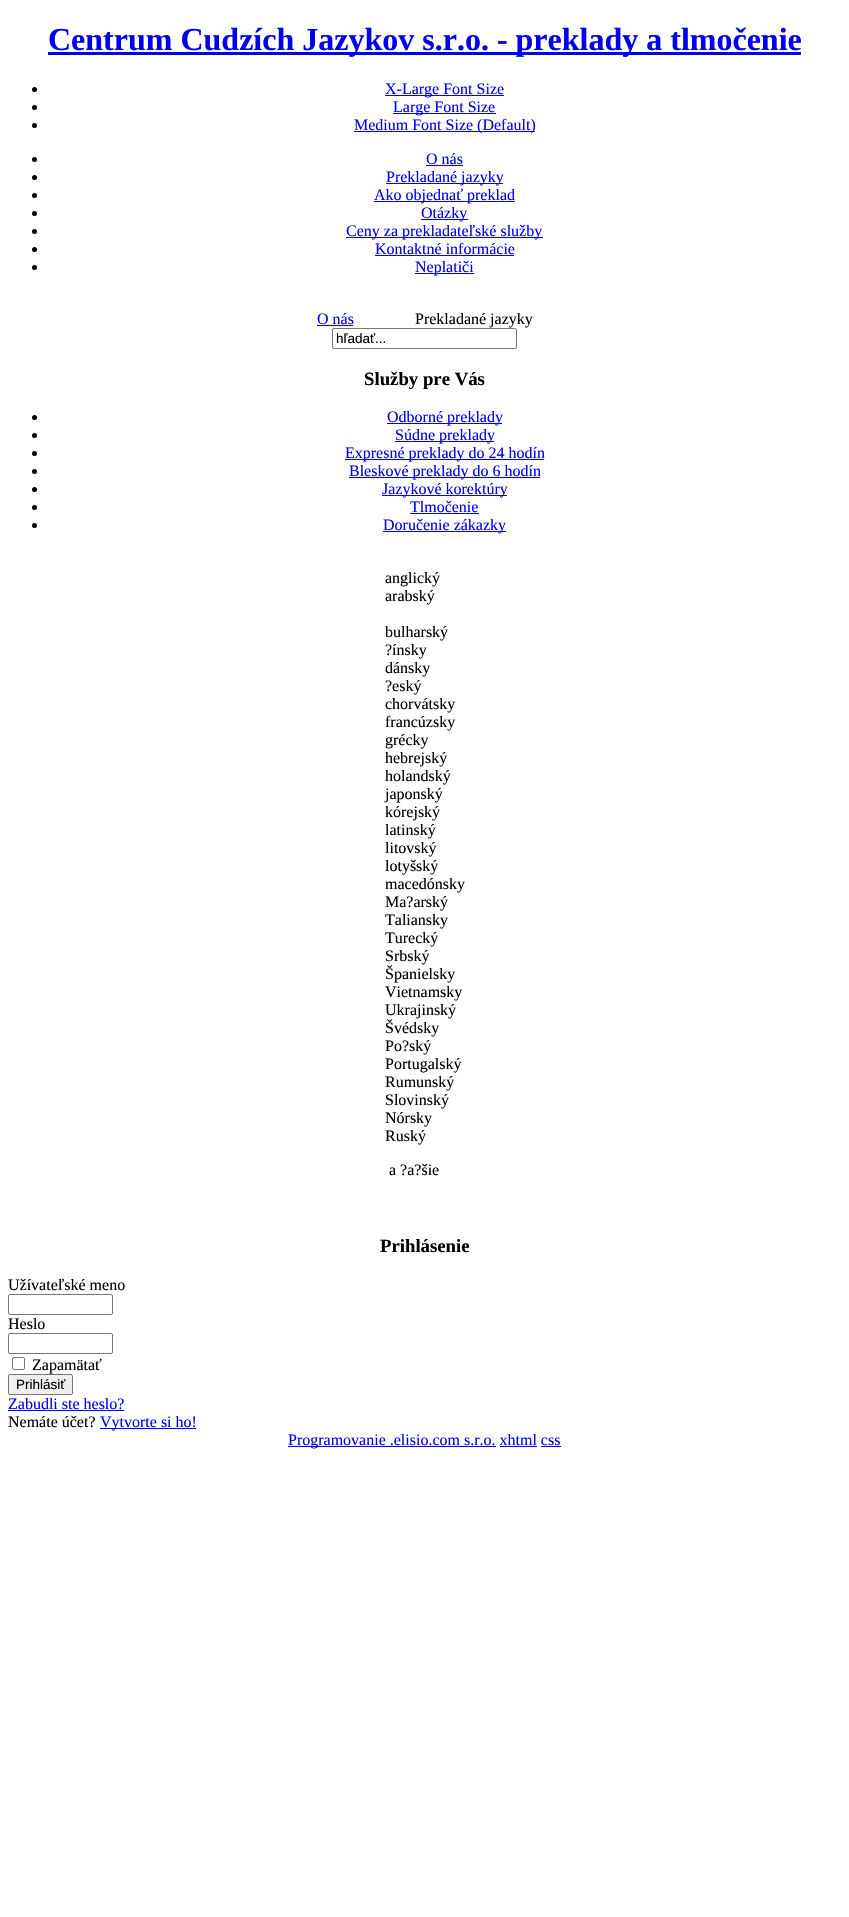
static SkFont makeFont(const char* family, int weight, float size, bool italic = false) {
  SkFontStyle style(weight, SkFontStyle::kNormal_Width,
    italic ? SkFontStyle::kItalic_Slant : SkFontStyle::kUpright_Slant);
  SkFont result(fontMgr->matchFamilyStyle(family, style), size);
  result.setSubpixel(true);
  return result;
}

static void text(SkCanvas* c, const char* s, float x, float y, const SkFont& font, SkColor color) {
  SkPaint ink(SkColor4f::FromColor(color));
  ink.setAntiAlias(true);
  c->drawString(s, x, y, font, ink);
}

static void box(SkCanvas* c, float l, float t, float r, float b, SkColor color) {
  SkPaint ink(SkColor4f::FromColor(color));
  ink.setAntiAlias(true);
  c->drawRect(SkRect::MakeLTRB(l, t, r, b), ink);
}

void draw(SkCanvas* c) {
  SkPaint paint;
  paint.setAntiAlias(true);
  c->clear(0xffffffff);
  box(c, 48, 52, 801, 55, 0xff0000ee);
  SkFont face1 = makeFont("Liberation Serif", 700, 32);
  text(c, "Centrum Cudzích Jazykov s.r.o. - preklady a tlmočenie", 48, 50, face1, 0xff0000ee);
  paint.setColor(0xff000000);
  c->drawCircle(34.5f, 89.5f, 2.5f, paint);
  box(c, 385, 95, 504, 96, 0xff0000ee);
  SkFont face2 = makeFont("Liberation Serif", 400, 16);
  text(c, "X-Large Font Size", 385, 94, face2, 0xff0000ee);
  c->drawCircle(34.5f, 107.5f, 2.5f, paint);
  box(c, 393, 113, 496, 114, 0xff0000ee);
  text(c, "Large Font Size", 393, 112, face2, 0xff0000ee);
  c->drawCircle(34.5f, 125.5f, 2.5f, paint);
  box(c, 354, 131, 535, 132, 0xff0000ee);
  text(c, "Medium Font Size (Default)", 354, 130, face2, 0xff0000ee);
  c->drawCircle(34.5f, 159.5f, 2.5f, paint);
  text(c, "O nás", 426, 164, face2, 0xff0000ee);
  box(c, 426, 165, 463, 166, 0xff0000ee);
  c->drawCircle(34.5f, 177.5f, 2.5f, paint);
  box(c, 386, 183, 503, 184, 0xff0000ee);
  text(c, "Prekladané jazyky", 386, 182, face2, 0xff0000ee);
  c->drawCircle(34.5f, 195.5f, 2.5f, paint);
  box(c, 374, 201, 515, 202, 0xff0000ee);
  text(c, "Ako objednať preklad", 374, 200, face2, 0xff0000ee);
  c->drawCircle(34.5f, 213.5f, 2.5f, paint);
  box(c, 421, 219, 468, 220, 0xff0000ee);
  text(c, "Otázky", 421, 218, face2, 0xff0000ee);
  c->drawCircle(34.5f, 231.5f, 2.5f, paint);
  box(c, 346, 237, 543, 238, 0xff0000ee);
  text(c, "Ceny za prekladateľské služby", 346, 236, face2, 0xff0000ee);
  c->drawCircle(34.5f, 249.5f, 2.5f, paint);
  text(c, "Kontaktné informácie", 375, 254, face2, 0xff0000ee);
  box(c, 375, 255, 514, 256, 0xff0000ee);
  c->drawCircle(34.5f, 267.5f, 2.5f, paint);
  box(c, 415, 273, 474, 274, 0xff0000ee);
  text(c, "Neplatiči", 415, 272, face2, 0xff0000ee);
  text(c, "O nás", 317, 324, face2, 0xff0000ee);
  box(c, 317, 325, 353, 326, 0xff0000ee);
  text(c, "Prekladané jazyky", 415, 324, face2, 0xff000000);
  paint.setStyle(SkPaint::kStroke_Style);
  paint.setStrokeWidth(1);
  paint.setColor(0xff767676);
  c->drawRoundRect(SkRect::MakeLTRB(332.5f, 328.5f, 516.5f, 348.5f), 1.5f, 1.5f, paint);
  SkFont face3 = makeFont("Liberation Sans", 400, 13.5f);
  text(c, "hľadať...", 336, 343, face3, 0xff000000);
  SkFont face4 = makeFont("Liberation Serif", 700, 18.75f);
  text(c, "Služby pre Vás", 364, 385, face4, 0xff000000);
  paint.setStyle(SkPaint::kFill_Style);
  paint.setColor(0xff000000);
  c->drawCircle(34.5f, 417.5f, 2.5f, paint);
  box(c, 387, 423, 502, 424, 0xff0000ee);
  text(c, "Odborné preklady", 387, 422, face2, 0xff0000ee);
  c->drawCircle(34.5f, 435.5f, 2.5f, paint);
  box(c, 395, 441, 494, 442, 0xff0000ee);
  text(c, "Súdne preklady", 395, 440, face2, 0xff0000ee);
  c->drawCircle(34.5f, 453.5f, 2.5f, paint);
  box(c, 345, 459, 544, 460, 0xff0000ee);
  text(c, "Expresné preklady do 24 hodín", 345, 458, face2, 0xff0000ee);
  c->drawCircle(34.5f, 471.5f, 2.5f, paint);
  box(c, 349, 477, 540, 478, 0xff0000ee);
  text(c, "Bleskové preklady do 6 hodín", 349, 476, face2, 0xff0000ee);
  c->drawCircle(34.5f, 489.5f, 2.5f, paint);
  box(c, 382, 495, 507, 496, 0xff0000ee);
  text(c, "Jazykové korektúry", 382, 494, face2, 0xff0000ee);
  c->drawCircle(34.5f, 507.5f, 2.5f, paint);
  text(c, "Tlmočenie", 410, 512, face2, 0xff0000ee);
  box(c, 410, 513, 479, 514, 0xff0000ee);
  c->drawCircle(34.5f, 525.5f, 2.5f, paint);
  box(c, 383, 531, 506, 532, 0xff0000ee);
  text(c, "Doručenie zákazky", 383, 530, face2, 0xff0000ee);
  text(c, "anglický", 385, 583, face2, 0xff000000);
  text(c, "arabský", 385, 601, face2, 0xff000000);
  text(c, "bulharský", 385, 637, face2, 0xff000000);
  text(c, "?ínsky", 385, 655, face2, 0xff000000);
  text(c, "dánsky", 385, 673, face2, 0xff000000);
  text(c, "?eský", 385, 691, face2, 0xff000000);
  text(c, "chorvátsky", 385, 709, face2, 0xff000000);
  text(c, "francúzsky", 385, 727, face2, 0xff000000);
  text(c, "grécky", 385, 745, face2, 0xff000000);
  text(c, "hebrejský", 385, 763, face2, 0xff000000);
  text(c, "holandský", 385, 781, face2, 0xff000000);
  text(c, "japonský", 385, 799, face2, 0xff000000);
  text(c, "kórejský", 385, 817, face2, 0xff000000);
  text(c, "latinský", 385, 835, face2, 0xff000000);
  text(c, "litovský", 385, 853, face2, 0xff000000);
  text(c, "lotyšský", 385, 871, face2, 0xff000000);
  text(c, "macedónsky", 385, 889, face2, 0xff000000);
  text(c, "Ma?arský", 385, 907, face2, 0xff000000);
  text(c, "Taliansky", 385, 925, face2, 0xff000000);
  text(c, "Turecký", 385, 943, face2, 0xff000000);
  text(c, "Srbský", 385, 961, face2, 0xff000000);
  text(c, "Španielsky", 385, 979, face2, 0xff000000);
  text(c, "Vietnamsky", 385, 997, face2, 0xff000000);
  text(c, "Ukrajinský", 385, 1015, face2, 0xff000000);
  text(c, "Švédsky", 385, 1033, face2, 0xff000000);
  text(c, "Po?ský", 385, 1051, face2, 0xff000000);
  text(c, "Portugalský", 385, 1069, face2, 0xff000000);
  text(c, "Rumunský", 385, 1087, face2, 0xff000000);
  text(c, "Slovinský", 385, 1105, face2, 0xff000000);
  text(c, "Nórsky", 385, 1123, face2, 0xff000000);
  text(c, "Ruský", 385, 1141, face2, 0xff000000);
  text(c, "a ?a?šie", 389, 1175, face2, 0xff000000);
  text(c, "Prihlásenie", 380, 1252, face4, 0xff000000);
  text(c, "Užívateľské meno", 8, 1290, face2, 0xff000000);
  paint.setStyle(SkPaint::kStroke_Style);
  paint.setColor(0xff767676);
  c->drawRoundRect(SkRect::MakeLTRB(8.5f, 1294.5f, 112.5f, 1314.5f), 1.5f, 1.5f, paint);
  text(c, "Heslo", 8, 1329, face2, 0xff000000);
  c->drawRoundRect(SkRect::MakeLTRB(8.5f, 1333.5f, 112.5f, 1353.5f), 1.5f, 1.5f, paint);
  c->drawRoundRect(SkRect::MakeLTRB(12.5f, 1357.5f, 24.5f, 1369.5f), 1.5f, 1.5f, paint);
  text(c, "Zapamätať", 32, 1370, face2, 0xff000000);
  paint.setStyle(SkPaint::kFill_Style);
  paint.setColor(0xffefefef);
  c->drawRoundRect(SkRect::MakeLTRB(8.5f, 1374.5f, 72.5f, 1394.5f), 1.5f, 1.5f, paint);
  paint.setStyle(SkPaint::kStroke_Style);
  paint.setColor(0xff767676);
  c->drawRoundRect(SkRect::MakeLTRB(8.5f, 1374.5f, 72.5f, 1394.5f), 1.5f, 1.5f, paint);
  text(c, "Prihlásiť", 16, 1389, face3, 0xff000000);
  text(c, "Zabudli ste heslo?", 8, 1409, face2, 0xff0000ee);
  box(c, 8, 1410, 124, 1411, 0xff0000ee);
  text(c, "Nemáte účet?", 8, 1427, face2, 0xff000000);
  box(c, 100, 1428, 196, 1429, 0xff0000ee);
  text(c, "Vytvorte si ho!", 100, 1427, face2, 0xff0000ee);
  box(c, 288, 1446, 496, 1447, 0xff0000ee);
  text(c, "Programovanie .elisio.com s.r.o. xhtml css", 288, 1445, face2, 0xff0000ee);
  box(c, 500, 1446, 537, 1447, 0xff0000ee);
  box(c, 541, 1446, 561, 1447, 0xff0000ee);
}
